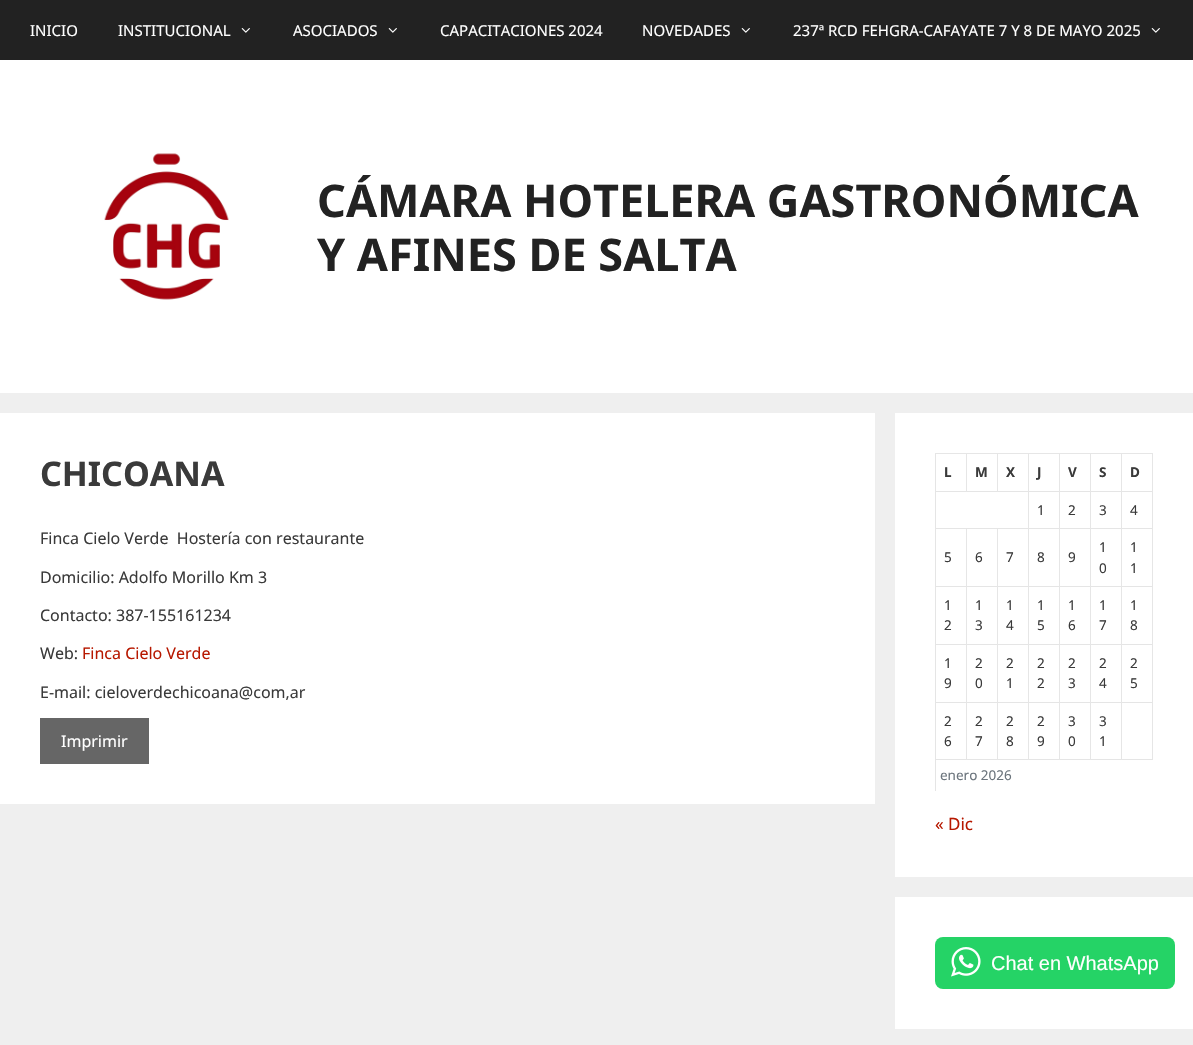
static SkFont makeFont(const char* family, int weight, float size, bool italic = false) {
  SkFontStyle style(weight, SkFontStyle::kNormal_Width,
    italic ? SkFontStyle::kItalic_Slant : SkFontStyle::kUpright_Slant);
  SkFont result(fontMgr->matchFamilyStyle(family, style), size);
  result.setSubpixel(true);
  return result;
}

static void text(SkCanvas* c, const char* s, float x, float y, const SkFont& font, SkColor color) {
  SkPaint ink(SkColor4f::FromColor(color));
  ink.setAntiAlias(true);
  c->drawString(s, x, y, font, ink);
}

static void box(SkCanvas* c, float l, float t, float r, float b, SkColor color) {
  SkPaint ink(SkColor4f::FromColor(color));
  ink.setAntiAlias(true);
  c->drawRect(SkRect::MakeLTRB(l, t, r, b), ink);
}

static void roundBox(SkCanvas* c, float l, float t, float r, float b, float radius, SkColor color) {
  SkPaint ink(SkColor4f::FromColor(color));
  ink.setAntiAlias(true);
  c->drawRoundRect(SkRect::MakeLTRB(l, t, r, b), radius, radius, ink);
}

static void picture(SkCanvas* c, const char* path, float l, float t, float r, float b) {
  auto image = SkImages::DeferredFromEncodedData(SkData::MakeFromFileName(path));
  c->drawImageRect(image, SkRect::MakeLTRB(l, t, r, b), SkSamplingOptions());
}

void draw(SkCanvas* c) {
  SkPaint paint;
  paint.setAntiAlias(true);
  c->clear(0xffefefef);
  box(c, 0, 0, 1193, 60, 0xff222222);
  SkFont face1 = makeFont("Noto Sans", 400, 15);
  text(c, "INICIO", 30, 36, face1, 0xffffffff);
  text(c, "INSTITUCIONAL", 118, 36, face1, 0xffffffff);
  picture(c, "img_01.png", 241, 28, 250, 33);
  text(c, "ASOCIADOS", 293, 36, face1, 0xffffffff);
  picture(c, "img_01.png", 388, 28, 397, 33);
  text(c, "CAPACITACIONES 2024", 440, 36, face1, 0xffffffff);
  text(c, "NOVEDADES", 642, 36, face1, 0xffffffff);
  picture(c, "img_01.png", 741, 28, 750, 33);
  text(c, "237ª RCD FEHGRA-CAFAYATE 7 Y 8 DE MAYO 2025", 793, 36, face1, 0xffffffff);
  picture(c, "img_01.png", 1151, 28, 1160, 33);
  box(c, 0, 60, 1193, 393, 0xffffffff);
  picture(c, "img_02.png", 104, 153, 229, 300);
  SkFont face2 = makeFont("Noto Sans", 700, 45);
  text(c, "CÁMARA HOTELERA GASTRONÓMICA", 317, 217, face2, 0xff222222);
  text(c, "Y AFINES DE SALTA", 317, 271, face2, 0xff222222);
  box(c, 0, 413, 875, 804, 0xffffffff);
  SkFont face3 = makeFont("Noto Sans", 700, 34);
  text(c, "CHICOANA", 40, 486, face3, 0xff3a3a3a);
  SkFont face4 = makeFont("Noto Sans", 400, 16);
  text(c, "Finca Cielo Verde  Hostería con restaurante", 40, 544, face4, 0xff3a3a3a);
  text(c, "Domicilio: Adolfo Morillo Km 3", 40, 583, face4, 0xff3a3a3a);
  text(c, "Contacto: 387-155161234", 40, 621, face4, 0xff3a3a3a);
  text(c, "Web:", 40, 659, face4, 0xff3a3a3a);
  text(c, "Finca Cielo Verde", 82, 659, face4, 0xffb71800);
  text(c, "E-mail: cieloverdechicoana@com,ar", 40, 698, face4, 0xff3a3a3a);
  box(c, 40, 718, 149, 764, 0xff666666);
  text(c, "Imprimir", 61, 747, face4, 0xffffffff);
  box(c, 895, 413, 1193, 877, 0xffffffff);
  paint.setColor(0xffe6e6e6);
  c->drawPath(SkPathBuilder().moveTo(935, 453).lineTo(1153, 453).lineTo(1153, 454).lineTo(936, 454).close().detach(), paint);
  paint.setColor(0x1a000000);
  c->drawPath(SkPathBuilder().moveTo(935, 791).lineTo(935, 453).lineTo(936, 454).lineTo(936, 791).close().detach(), paint);
  paint.setColor(0xffe6e6e6);
  c->drawPath(SkPathBuilder().moveTo(967, 454).lineTo(967, 492).lineTo(966, 491).lineTo(966, 454).close().detach(), paint);
  paint.setColor(0x1a000000);
  c->drawPath(SkPathBuilder().moveTo(967, 492).lineTo(936, 492).lineTo(936, 491).lineTo(966, 491).close().detach(), paint);
  SkFont face5 = makeFont("Noto Sans", 700, 13.5f);
  text(c, "L", 944, 477, face5, 0xff3a3a3a);
  paint.setColor(0xffe6e6e6);
  c->drawPath(SkPathBuilder().moveTo(998, 454).lineTo(998, 492).lineTo(997, 491).lineTo(997, 454).close().detach(), paint);
  paint.setColor(0x1a000000);
  c->drawPath(SkPathBuilder().moveTo(998, 492).lineTo(967, 492).lineTo(967, 491).lineTo(997, 491).close().detach(), paint);
  text(c, "M", 975, 477, face5, 0xff3a3a3a);
  paint.setColor(0xffe6e6e6);
  c->drawPath(SkPathBuilder().moveTo(1029, 454).lineTo(1029, 492).lineTo(1028, 491).lineTo(1028, 454).close().detach(), paint);
  paint.setColor(0x1a000000);
  c->drawPath(SkPathBuilder().moveTo(1029, 492).lineTo(998, 492).lineTo(998, 491).lineTo(1028, 491).close().detach(), paint);
  text(c, "X", 1006, 477, face5, 0xff3a3a3a);
  paint.setColor(0xffe6e6e6);
  c->drawPath(SkPathBuilder().moveTo(1060, 454).lineTo(1060, 492).lineTo(1059, 491).lineTo(1059, 454).close().detach(), paint);
  paint.setColor(0x1a000000);
  c->drawPath(SkPathBuilder().moveTo(1060, 492).lineTo(1029, 492).lineTo(1029, 491).lineTo(1059, 491).close().detach(), paint);
  text(c, "J", 1037, 477, face5, 0xff3a3a3a);
  paint.setColor(0xffe6e6e6);
  c->drawPath(SkPathBuilder().moveTo(1091, 454).lineTo(1091, 492).lineTo(1090, 491).lineTo(1090, 454).close().detach(), paint);
  paint.setColor(0x1a000000);
  c->drawPath(SkPathBuilder().moveTo(1091, 492).lineTo(1060, 492).lineTo(1060, 491).lineTo(1090, 491).close().detach(), paint);
  text(c, "V", 1068, 477, face5, 0xff3a3a3a);
  paint.setColor(0xffe6e6e6);
  c->drawPath(SkPathBuilder().moveTo(1122, 454).lineTo(1122, 492).lineTo(1121, 491).lineTo(1121, 454).close().detach(), paint);
  paint.setColor(0x1a000000);
  c->drawPath(SkPathBuilder().moveTo(1122, 492).lineTo(1091, 492).lineTo(1091, 491).lineTo(1121, 491).close().detach(), paint);
  text(c, "S", 1099, 477, face5, 0xff3a3a3a);
  paint.setColor(0xffe6e6e6);
  c->drawPath(SkPathBuilder().moveTo(1153, 454).lineTo(1153, 492).lineTo(1152, 491).lineTo(1152, 454).close().detach(), paint);
  paint.setColor(0x1a000000);
  c->drawPath(SkPathBuilder().moveTo(1153, 492).lineTo(1122, 492).lineTo(1122, 491).lineTo(1152, 491).close().detach(), paint);
  text(c, "D", 1130, 477, face5, 0xff3a3a3a);
  paint.setColor(0xffe6e6e6);
  c->drawPath(SkPathBuilder().moveTo(1029, 492).lineTo(1029, 529).lineTo(1028, 528).lineTo(1028, 492).close().detach(), paint);
  paint.setColor(0x1a000000);
  c->drawPath(SkPathBuilder().moveTo(1029, 529).lineTo(936, 529).lineTo(936, 528).lineTo(1028, 528).close().detach(), paint);
  paint.setColor(0xffe6e6e6);
  c->drawPath(SkPathBuilder().moveTo(1060, 492).lineTo(1060, 529).lineTo(1059, 528).lineTo(1059, 492).close().detach(), paint);
  paint.setColor(0x1a000000);
  c->drawPath(SkPathBuilder().moveTo(1060, 529).lineTo(1029, 529).lineTo(1029, 528).lineTo(1059, 528).close().detach(), paint);
  SkFont face6 = makeFont("Noto Sans", 400, 13.5f);
  text(c, "1", 1037, 515, face6, 0xff3a3a3a);
  paint.setColor(0xffe6e6e6);
  c->drawPath(SkPathBuilder().moveTo(1091, 492).lineTo(1091, 529).lineTo(1090, 528).lineTo(1090, 492).close().detach(), paint);
  paint.setColor(0x1a000000);
  c->drawPath(SkPathBuilder().moveTo(1091, 529).lineTo(1060, 529).lineTo(1060, 528).lineTo(1090, 528).close().detach(), paint);
  text(c, "2", 1068, 515, face6, 0xff3a3a3a);
  paint.setColor(0xffe6e6e6);
  c->drawPath(SkPathBuilder().moveTo(1122, 492).lineTo(1122, 529).lineTo(1121, 528).lineTo(1121, 492).close().detach(), paint);
  paint.setColor(0x1a000000);
  c->drawPath(SkPathBuilder().moveTo(1122, 529).lineTo(1091, 529).lineTo(1091, 528).lineTo(1121, 528).close().detach(), paint);
  text(c, "3", 1099, 515, face6, 0xff3a3a3a);
  paint.setColor(0xffe6e6e6);
  c->drawPath(SkPathBuilder().moveTo(1153, 492).lineTo(1153, 529).lineTo(1152, 528).lineTo(1152, 492).close().detach(), paint);
  paint.setColor(0x1a000000);
  c->drawPath(SkPathBuilder().moveTo(1153, 529).lineTo(1122, 529).lineTo(1122, 528).lineTo(1152, 528).close().detach(), paint);
  text(c, "4", 1130, 515, face6, 0xff3a3a3a);
  paint.setColor(0xffe6e6e6);
  c->drawPath(SkPathBuilder().moveTo(967, 529).lineTo(967, 587).lineTo(966, 586).lineTo(966, 529).close().detach(), paint);
  paint.setColor(0x1a000000);
  c->drawPath(SkPathBuilder().moveTo(967, 587).lineTo(936, 587).lineTo(936, 586).lineTo(966, 586).close().detach(), paint);
  text(c, "5", 944, 562, face6, 0xff3a3a3a);
  paint.setColor(0xffe6e6e6);
  c->drawPath(SkPathBuilder().moveTo(998, 529).lineTo(998, 587).lineTo(997, 586).lineTo(997, 529).close().detach(), paint);
  paint.setColor(0x1a000000);
  c->drawPath(SkPathBuilder().moveTo(998, 587).lineTo(967, 587).lineTo(967, 586).lineTo(997, 586).close().detach(), paint);
  text(c, "6", 975, 562, face6, 0xff3a3a3a);
  paint.setColor(0xffe6e6e6);
  c->drawPath(SkPathBuilder().moveTo(1029, 529).lineTo(1029, 587).lineTo(1028, 586).lineTo(1028, 529).close().detach(), paint);
  paint.setColor(0x1a000000);
  c->drawPath(SkPathBuilder().moveTo(1029, 587).lineTo(998, 587).lineTo(998, 586).lineTo(1028, 586).close().detach(), paint);
  text(c, "7", 1006, 562, face6, 0xff3a3a3a);
  paint.setColor(0xffe6e6e6);
  c->drawPath(SkPathBuilder().moveTo(1060, 529).lineTo(1060, 587).lineTo(1059, 586).lineTo(1059, 529).close().detach(), paint);
  paint.setColor(0x1a000000);
  c->drawPath(SkPathBuilder().moveTo(1060, 587).lineTo(1029, 587).lineTo(1029, 586).lineTo(1059, 586).close().detach(), paint);
  text(c, "8", 1037, 562, face6, 0xff3a3a3a);
  paint.setColor(0xffe6e6e6);
  c->drawPath(SkPathBuilder().moveTo(1091, 529).lineTo(1091, 587).lineTo(1090, 586).lineTo(1090, 529).close().detach(), paint);
  paint.setColor(0x1a000000);
  c->drawPath(SkPathBuilder().moveTo(1091, 587).lineTo(1060, 587).lineTo(1060, 586).lineTo(1090, 586).close().detach(), paint);
  text(c, "9", 1068, 562, face6, 0xff3a3a3a);
  paint.setColor(0xffe6e6e6);
  c->drawPath(SkPathBuilder().moveTo(1122, 529).lineTo(1122, 587).lineTo(1121, 586).lineTo(1121, 529).close().detach(), paint);
  paint.setColor(0x1a000000);
  c->drawPath(SkPathBuilder().moveTo(1122, 587).lineTo(1091, 587).lineTo(1091, 586).lineTo(1121, 586).close().detach(), paint);
  text(c, "1", 1099, 552, face6, 0xff3a3a3a);
  text(c, "0", 1099, 573, face6, 0xff3a3a3a);
  paint.setColor(0xffe6e6e6);
  c->drawPath(SkPathBuilder().moveTo(1153, 529).lineTo(1153, 587).lineTo(1152, 586).lineTo(1152, 529).close().detach(), paint);
  paint.setColor(0x1a000000);
  c->drawPath(SkPathBuilder().moveTo(1153, 587).lineTo(1122, 587).lineTo(1122, 586).lineTo(1152, 586).close().detach(), paint);
  text(c, "1", 1130, 552, face6, 0xff3a3a3a);
  text(c, "1", 1130, 573, face6, 0xff3a3a3a);
  paint.setColor(0xffe6e6e6);
  c->drawPath(SkPathBuilder().moveTo(967, 587).lineTo(967, 645).lineTo(966, 644).lineTo(966, 587).close().detach(), paint);
  paint.setColor(0x1a000000);
  c->drawPath(SkPathBuilder().moveTo(967, 645).lineTo(936, 645).lineTo(936, 644).lineTo(966, 644).close().detach(), paint);
  text(c, "1", 944, 610, face6, 0xff3a3a3a);
  text(c, "2", 944, 630, face6, 0xff3a3a3a);
  paint.setColor(0xffe6e6e6);
  c->drawPath(SkPathBuilder().moveTo(998, 587).lineTo(998, 645).lineTo(997, 644).lineTo(997, 587).close().detach(), paint);
  paint.setColor(0x1a000000);
  c->drawPath(SkPathBuilder().moveTo(998, 645).lineTo(967, 645).lineTo(967, 644).lineTo(997, 644).close().detach(), paint);
  text(c, "1", 975, 610, face6, 0xff3a3a3a);
  text(c, "3", 975, 630, face6, 0xff3a3a3a);
  paint.setColor(0xffe6e6e6);
  c->drawPath(SkPathBuilder().moveTo(1029, 587).lineTo(1029, 645).lineTo(1028, 644).lineTo(1028, 587).close().detach(), paint);
  paint.setColor(0x1a000000);
  c->drawPath(SkPathBuilder().moveTo(1029, 645).lineTo(998, 645).lineTo(998, 644).lineTo(1028, 644).close().detach(), paint);
  text(c, "1", 1006, 610, face6, 0xff3a3a3a);
  text(c, "4", 1006, 630, face6, 0xff3a3a3a);
  paint.setColor(0xffe6e6e6);
  c->drawPath(SkPathBuilder().moveTo(1060, 587).lineTo(1060, 645).lineTo(1059, 644).lineTo(1059, 587).close().detach(), paint);
  paint.setColor(0x1a000000);
  c->drawPath(SkPathBuilder().moveTo(1060, 645).lineTo(1029, 645).lineTo(1029, 644).lineTo(1059, 644).close().detach(), paint);
  text(c, "1", 1037, 610, face6, 0xff3a3a3a);
  text(c, "5", 1037, 630, face6, 0xff3a3a3a);
  paint.setColor(0xffe6e6e6);
  c->drawPath(SkPathBuilder().moveTo(1091, 587).lineTo(1091, 645).lineTo(1090, 644).lineTo(1090, 587).close().detach(), paint);
  paint.setColor(0x1a000000);
  c->drawPath(SkPathBuilder().moveTo(1091, 645).lineTo(1060, 645).lineTo(1060, 644).lineTo(1090, 644).close().detach(), paint);
  text(c, "1", 1068, 610, face6, 0xff3a3a3a);
  text(c, "6", 1068, 630, face6, 0xff3a3a3a);
  paint.setColor(0xffe6e6e6);
  c->drawPath(SkPathBuilder().moveTo(1122, 587).lineTo(1122, 645).lineTo(1121, 644).lineTo(1121, 587).close().detach(), paint);
  paint.setColor(0x1a000000);
  c->drawPath(SkPathBuilder().moveTo(1122, 645).lineTo(1091, 645).lineTo(1091, 644).lineTo(1121, 644).close().detach(), paint);
  text(c, "1", 1099, 610, face6, 0xff3a3a3a);
  text(c, "7", 1099, 630, face6, 0xff3a3a3a);
  paint.setColor(0xffe6e6e6);
  c->drawPath(SkPathBuilder().moveTo(1153, 587).lineTo(1153, 645).lineTo(1152, 644).lineTo(1152, 587).close().detach(), paint);
  paint.setColor(0x1a000000);
  c->drawPath(SkPathBuilder().moveTo(1153, 645).lineTo(1122, 645).lineTo(1122, 644).lineTo(1152, 644).close().detach(), paint);
  text(c, "1", 1130, 610, face6, 0xff3a3a3a);
  text(c, "8", 1130, 630, face6, 0xff3a3a3a);
  paint.setColor(0xffe6e6e6);
  c->drawPath(SkPathBuilder().moveTo(967, 645).lineTo(967, 703).lineTo(966, 702).lineTo(966, 645).close().detach(), paint);
  paint.setColor(0x1a000000);
  c->drawPath(SkPathBuilder().moveTo(967, 703).lineTo(936, 703).lineTo(936, 702).lineTo(966, 702).close().detach(), paint);
  text(c, "1", 944, 668, face6, 0xff3a3a3a);
  text(c, "9", 944, 688, face6, 0xff3a3a3a);
  paint.setColor(0xffe6e6e6);
  c->drawPath(SkPathBuilder().moveTo(998, 645).lineTo(998, 703).lineTo(997, 702).lineTo(997, 645).close().detach(), paint);
  paint.setColor(0x1a000000);
  c->drawPath(SkPathBuilder().moveTo(998, 703).lineTo(967, 703).lineTo(967, 702).lineTo(997, 702).close().detach(), paint);
  text(c, "2", 975, 668, face6, 0xff3a3a3a);
  text(c, "0", 975, 688, face6, 0xff3a3a3a);
  paint.setColor(0xffe6e6e6);
  c->drawPath(SkPathBuilder().moveTo(1029, 645).lineTo(1029, 703).lineTo(1028, 702).lineTo(1028, 645).close().detach(), paint);
  paint.setColor(0x1a000000);
  c->drawPath(SkPathBuilder().moveTo(1029, 703).lineTo(998, 703).lineTo(998, 702).lineTo(1028, 702).close().detach(), paint);
  text(c, "2", 1006, 668, face6, 0xff3a3a3a);
  text(c, "1", 1006, 688, face6, 0xff3a3a3a);
  paint.setColor(0xffe6e6e6);
  c->drawPath(SkPathBuilder().moveTo(1060, 645).lineTo(1060, 703).lineTo(1059, 702).lineTo(1059, 645).close().detach(), paint);
  paint.setColor(0x1a000000);
  c->drawPath(SkPathBuilder().moveTo(1060, 703).lineTo(1029, 703).lineTo(1029, 702).lineTo(1059, 702).close().detach(), paint);
  text(c, "2", 1037, 668, face6, 0xff3a3a3a);
  text(c, "2", 1037, 688, face6, 0xff3a3a3a);
  paint.setColor(0xffe6e6e6);
  c->drawPath(SkPathBuilder().moveTo(1091, 645).lineTo(1091, 703).lineTo(1090, 702).lineTo(1090, 645).close().detach(), paint);
  paint.setColor(0x1a000000);
  c->drawPath(SkPathBuilder().moveTo(1091, 703).lineTo(1060, 703).lineTo(1060, 702).lineTo(1090, 702).close().detach(), paint);
  text(c, "2", 1068, 668, face6, 0xff3a3a3a);
  text(c, "3", 1068, 688, face6, 0xff3a3a3a);
  paint.setColor(0xffe6e6e6);
  c->drawPath(SkPathBuilder().moveTo(1122, 645).lineTo(1122, 703).lineTo(1121, 702).lineTo(1121, 645).close().detach(), paint);
  paint.setColor(0x1a000000);
  c->drawPath(SkPathBuilder().moveTo(1122, 703).lineTo(1091, 703).lineTo(1091, 702).lineTo(1121, 702).close().detach(), paint);
  text(c, "2", 1099, 668, face6, 0xff3a3a3a);
  text(c, "4", 1099, 688, face6, 0xff3a3a3a);
  paint.setColor(0xffe6e6e6);
  c->drawPath(SkPathBuilder().moveTo(1153, 645).lineTo(1153, 703).lineTo(1152, 702).lineTo(1152, 645).close().detach(), paint);
  paint.setColor(0x1a000000);
  c->drawPath(SkPathBuilder().moveTo(1153, 703).lineTo(1122, 703).lineTo(1122, 702).lineTo(1152, 702).close().detach(), paint);
  text(c, "2", 1130, 668, face6, 0xff3a3a3a);
  text(c, "5", 1130, 688, face6, 0xff3a3a3a);
  paint.setColor(0xffe6e6e6);
  c->drawPath(SkPathBuilder().moveTo(967, 703).lineTo(967, 760).lineTo(966, 759).lineTo(966, 703).close().detach(), paint);
  paint.setColor(0x1a000000);
  c->drawPath(SkPathBuilder().moveTo(967, 760).lineTo(936, 760).lineTo(936, 759).lineTo(966, 759).close().detach(), paint);
  text(c, "2", 944, 726, face6, 0xff3a3a3a);
  text(c, "6", 944, 746, face6, 0xff3a3a3a);
  paint.setColor(0xffe6e6e6);
  c->drawPath(SkPathBuilder().moveTo(998, 703).lineTo(998, 760).lineTo(997, 759).lineTo(997, 703).close().detach(), paint);
  paint.setColor(0x1a000000);
  c->drawPath(SkPathBuilder().moveTo(998, 760).lineTo(967, 760).lineTo(967, 759).lineTo(997, 759).close().detach(), paint);
  text(c, "2", 975, 726, face6, 0xff3a3a3a);
  text(c, "7", 975, 746, face6, 0xff3a3a3a);
  paint.setColor(0xffe6e6e6);
  c->drawPath(SkPathBuilder().moveTo(1029, 703).lineTo(1029, 760).lineTo(1028, 759).lineTo(1028, 703).close().detach(), paint);
  paint.setColor(0x1a000000);
  c->drawPath(SkPathBuilder().moveTo(1029, 760).lineTo(998, 760).lineTo(998, 759).lineTo(1028, 759).close().detach(), paint);
  text(c, "2", 1006, 726, face6, 0xff3a3a3a);
  text(c, "8", 1006, 746, face6, 0xff3a3a3a);
  paint.setColor(0xffe6e6e6);
  c->drawPath(SkPathBuilder().moveTo(1060, 703).lineTo(1060, 760).lineTo(1059, 759).lineTo(1059, 703).close().detach(), paint);
  paint.setColor(0x1a000000);
  c->drawPath(SkPathBuilder().moveTo(1060, 760).lineTo(1029, 760).lineTo(1029, 759).lineTo(1059, 759).close().detach(), paint);
  text(c, "2", 1037, 726, face6, 0xff3a3a3a);
  text(c, "9", 1037, 746, face6, 0xff3a3a3a);
  paint.setColor(0xffe6e6e6);
  c->drawPath(SkPathBuilder().moveTo(1091, 703).lineTo(1091, 760).lineTo(1090, 759).lineTo(1090, 703).close().detach(), paint);
  paint.setColor(0x1a000000);
  c->drawPath(SkPathBuilder().moveTo(1091, 760).lineTo(1060, 760).lineTo(1060, 759).lineTo(1090, 759).close().detach(), paint);
  text(c, "3", 1068, 726, face6, 0xff3a3a3a);
  text(c, "0", 1068, 746, face6, 0xff3a3a3a);
  paint.setColor(0xffe6e6e6);
  c->drawPath(SkPathBuilder().moveTo(1122, 703).lineTo(1122, 760).lineTo(1121, 759).lineTo(1121, 703).close().detach(), paint);
  paint.setColor(0x1a000000);
  c->drawPath(SkPathBuilder().moveTo(1122, 760).lineTo(1091, 760).lineTo(1091, 759).lineTo(1121, 759).close().detach(), paint);
  text(c, "3", 1099, 726, face6, 0xff3a3a3a);
  text(c, "1", 1099, 746, face6, 0xff3a3a3a);
  paint.setColor(0xffe6e6e6);
  c->drawPath(SkPathBuilder().moveTo(1153, 703).lineTo(1153, 760).lineTo(1152, 759).lineTo(1152, 703).close().detach(), paint);
  paint.setColor(0x1a000000);
  c->drawPath(SkPathBuilder().moveTo(1153, 760).lineTo(1122, 760).lineTo(1122, 759).lineTo(1152, 759).close().detach(), paint);
  text(c, "enero 2026", 940, 780, face6, 0xff6c757d);
  SkFont face7 = makeFont("Noto Sans", 400, 17);
  text(c, "« Dic", 935, 830, face7, 0xffb71800);
  box(c, 895, 897, 1193, 1029, 0xffffffff);
  roundBox(c, 935, 937, 1175, 989, 8, 0xff25d366);
  picture(c, "img_03.png", 951, 947, 981, 977);
  SkFont face8 = makeFont("Liberation Sans", 400, 20);
  text(c, "Chat en WhatsApp", 991, 970, face8, 0xffffffff);
}
